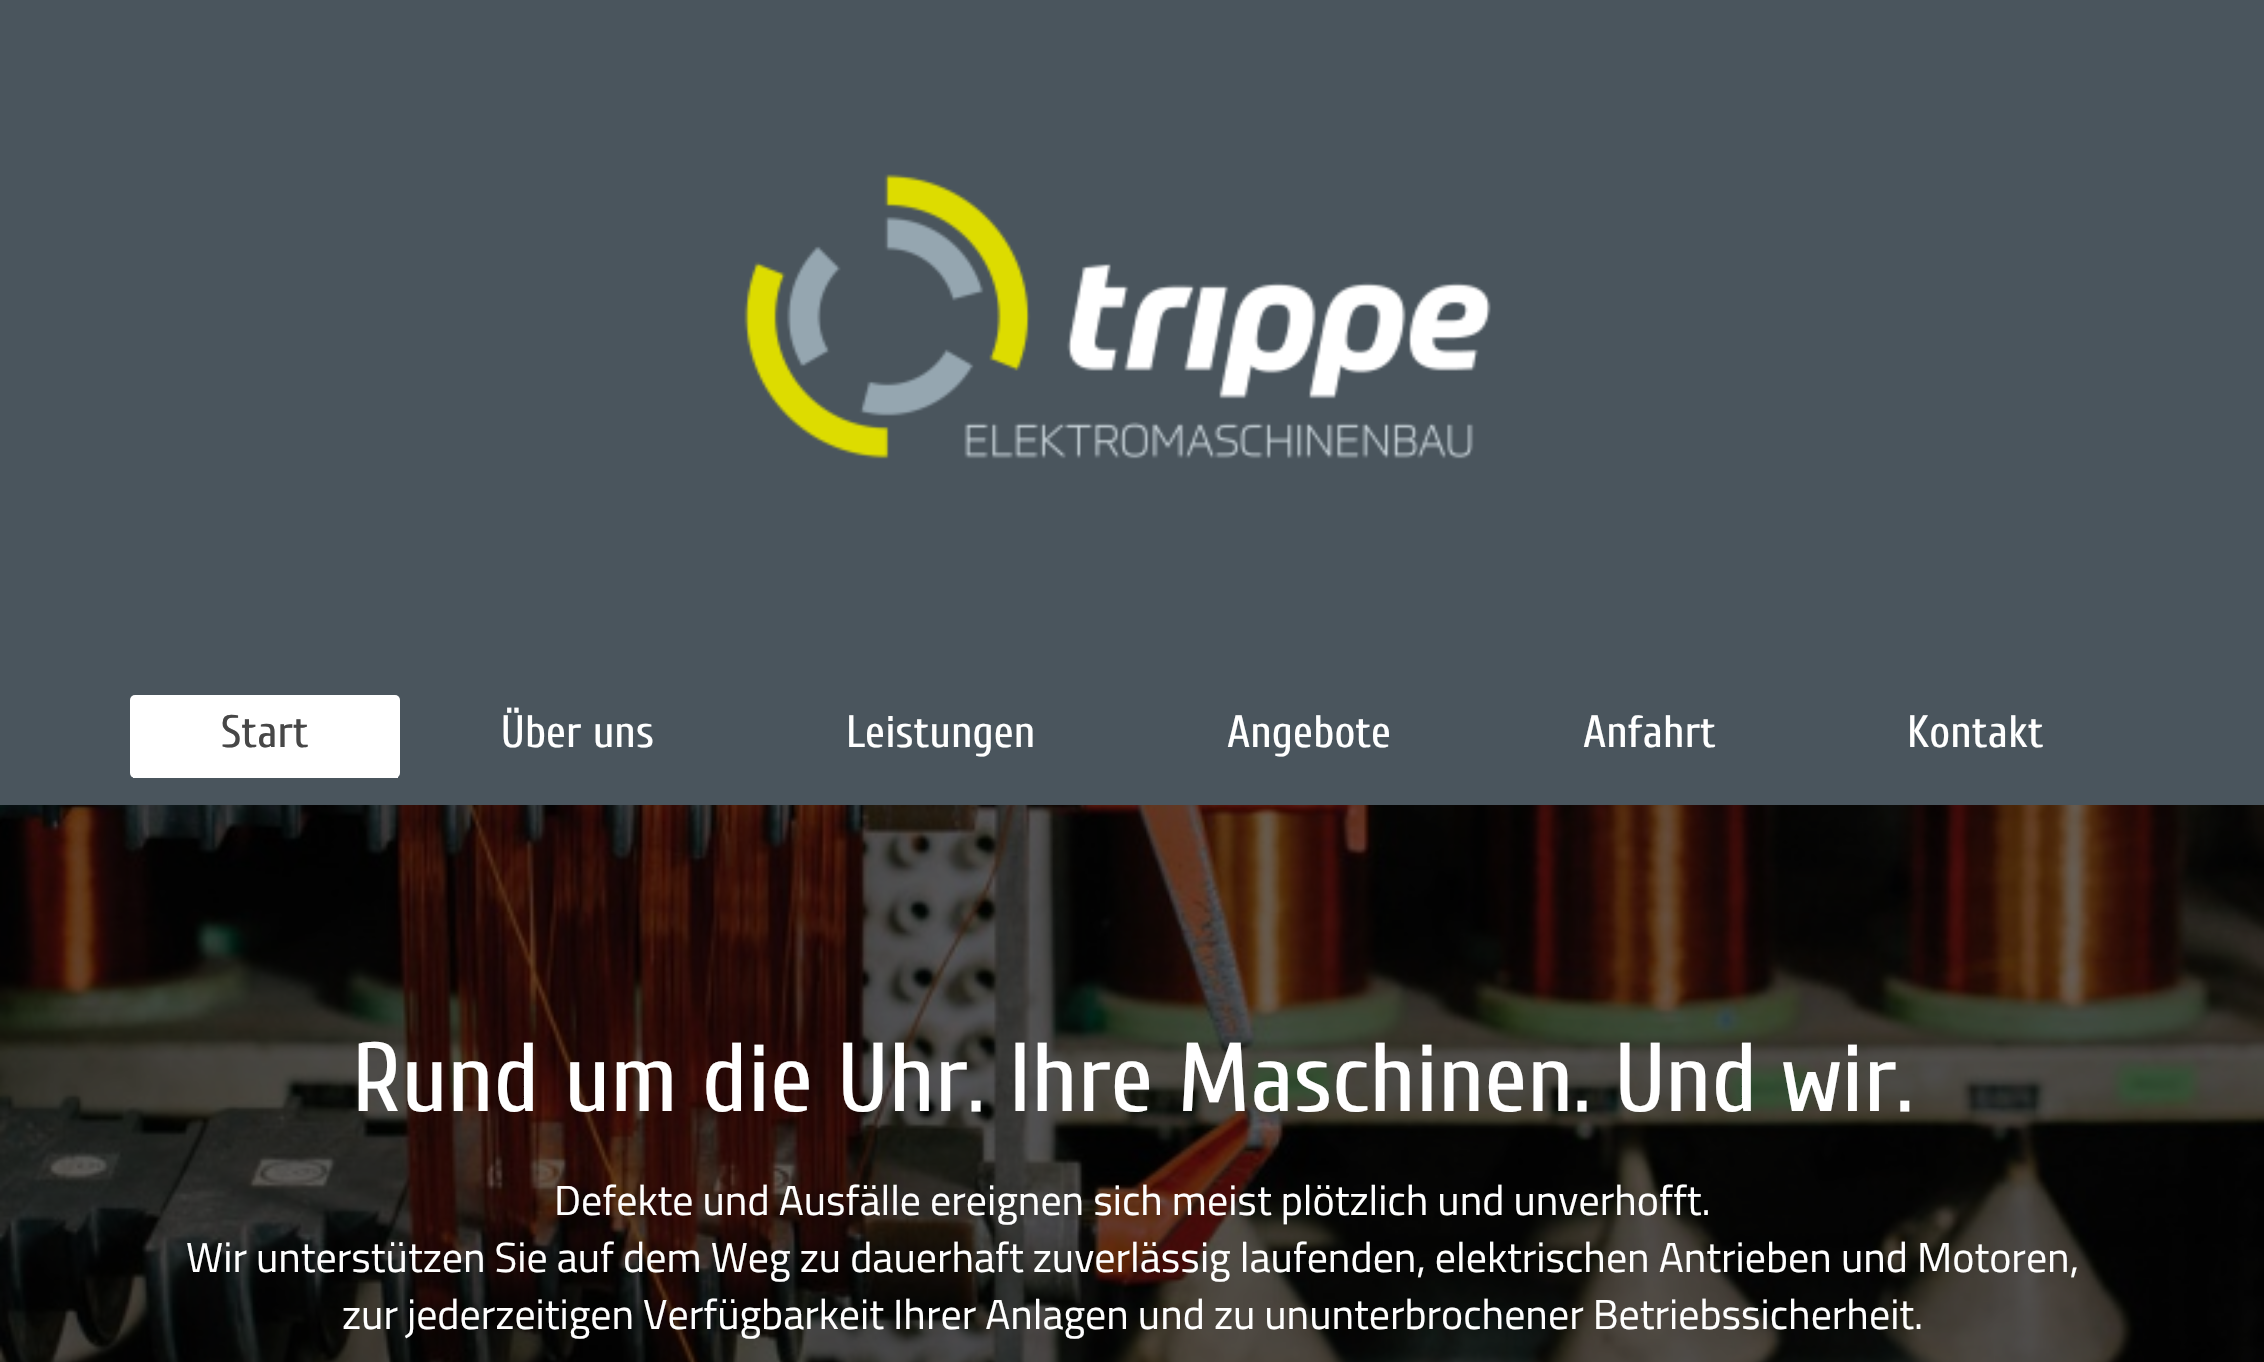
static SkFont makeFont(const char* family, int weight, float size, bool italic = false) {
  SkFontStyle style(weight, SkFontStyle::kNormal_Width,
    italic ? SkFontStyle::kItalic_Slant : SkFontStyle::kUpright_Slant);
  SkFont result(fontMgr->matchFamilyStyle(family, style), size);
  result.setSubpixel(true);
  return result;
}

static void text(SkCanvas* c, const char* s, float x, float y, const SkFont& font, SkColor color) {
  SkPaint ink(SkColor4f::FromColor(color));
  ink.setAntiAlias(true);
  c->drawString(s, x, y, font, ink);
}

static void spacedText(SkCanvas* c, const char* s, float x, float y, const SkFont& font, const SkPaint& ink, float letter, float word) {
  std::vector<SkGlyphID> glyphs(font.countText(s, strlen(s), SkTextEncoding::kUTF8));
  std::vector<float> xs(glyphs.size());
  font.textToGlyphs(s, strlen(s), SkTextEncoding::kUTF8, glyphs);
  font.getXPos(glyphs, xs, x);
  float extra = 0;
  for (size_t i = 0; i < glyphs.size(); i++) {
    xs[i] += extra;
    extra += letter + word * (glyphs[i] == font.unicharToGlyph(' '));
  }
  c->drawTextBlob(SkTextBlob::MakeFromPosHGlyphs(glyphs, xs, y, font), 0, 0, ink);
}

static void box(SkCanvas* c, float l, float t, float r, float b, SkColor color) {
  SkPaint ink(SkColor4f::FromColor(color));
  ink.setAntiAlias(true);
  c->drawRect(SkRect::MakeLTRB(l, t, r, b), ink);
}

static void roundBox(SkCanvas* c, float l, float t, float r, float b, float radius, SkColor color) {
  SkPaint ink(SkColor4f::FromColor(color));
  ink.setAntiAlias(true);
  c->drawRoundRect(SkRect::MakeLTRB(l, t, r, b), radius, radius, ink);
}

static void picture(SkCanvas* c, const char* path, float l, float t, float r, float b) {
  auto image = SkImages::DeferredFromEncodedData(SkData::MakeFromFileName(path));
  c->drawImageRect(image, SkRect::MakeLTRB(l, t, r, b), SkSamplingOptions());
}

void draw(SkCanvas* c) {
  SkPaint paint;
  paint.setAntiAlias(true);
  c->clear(0xff4a555d);
  picture(c, "img_01.png", 744, 174, 1491, 459);
  roundBox(c, 130, 695, 400, 778, 5, 0xffffffff);
  box(c, 133, 777, 398, 778, 0xffffffff);
  SkFont face1 = makeFont("Cuprum", 400, 45.5f);
  text(c, "Start", 221, 747, face1, 0xff474747);
  text(c, "Über uns", 501, 747, face1, 0xffffffff);
  text(c, "Leistungen", 846, 747, face1, 0xffffffff);
  text(c, "Angebote", 1227, 747, face1, 0xffffffff);
  text(c, "Anfahrt", 1583, 747, face1, 0xffffffff);
  text(c, "Kontakt", 1907, 747, face1, 0xffffffff);
  picture(c, "img_02.png", 0, 805, 2264, 1362);
  SkFont face2 = makeFont("Cuprum", 400, 97.5f);
  text(c, "Rund um die Uhr. Ihre Maschinen. Und wir.", 352, 1111, face2, 0xffffffff);
  SkFont face3 = makeFont("Titillium Web", 400, 42);
  paint.setColor(0xffffffff);
  spacedText(c, "Defekte und Ausfälle ereignen sich meist plötzlich und unverhofft.", 554, 1215, face3, paint, 0, -0.2f);
  spacedText(c, "Wir unterstützen Sie auf dem Weg zu dauerhaft zuverlässig laufenden, elektrischen Antrieben und Motoren,", 186, 1272, face3, paint, 0, -0.2f);
  spacedText(c, "zur jederzeitigen Verfügbarkeit Ihrer Anlagen und zu ununterbrochener Betriebssicherheit.", 342, 1329, face3, paint, 0, -0.25f);
}
